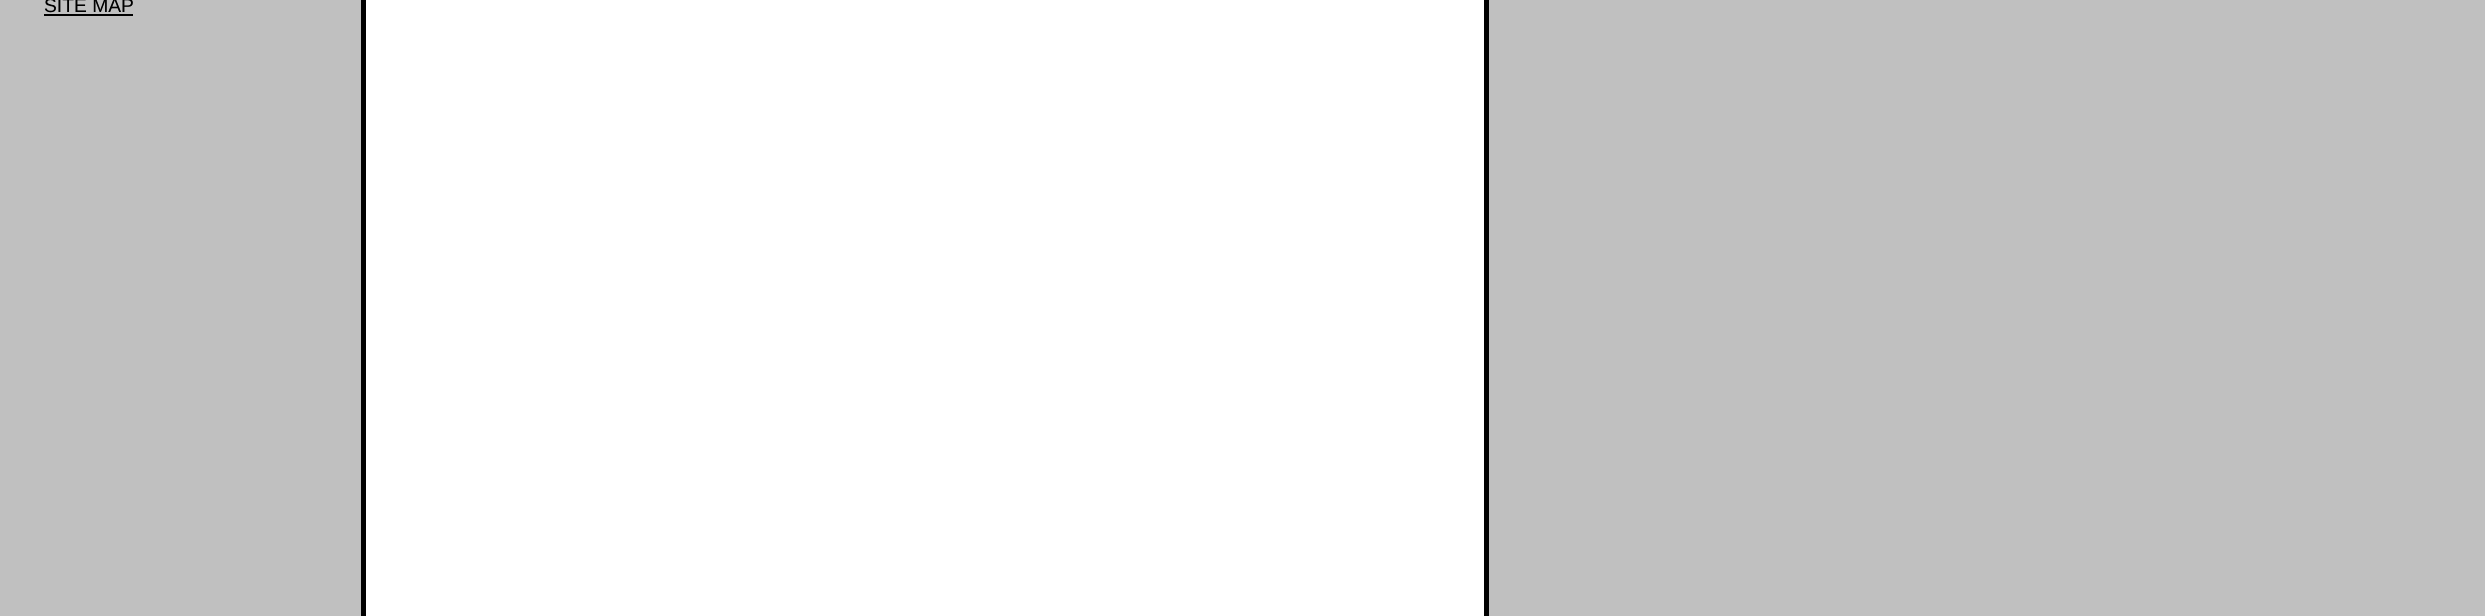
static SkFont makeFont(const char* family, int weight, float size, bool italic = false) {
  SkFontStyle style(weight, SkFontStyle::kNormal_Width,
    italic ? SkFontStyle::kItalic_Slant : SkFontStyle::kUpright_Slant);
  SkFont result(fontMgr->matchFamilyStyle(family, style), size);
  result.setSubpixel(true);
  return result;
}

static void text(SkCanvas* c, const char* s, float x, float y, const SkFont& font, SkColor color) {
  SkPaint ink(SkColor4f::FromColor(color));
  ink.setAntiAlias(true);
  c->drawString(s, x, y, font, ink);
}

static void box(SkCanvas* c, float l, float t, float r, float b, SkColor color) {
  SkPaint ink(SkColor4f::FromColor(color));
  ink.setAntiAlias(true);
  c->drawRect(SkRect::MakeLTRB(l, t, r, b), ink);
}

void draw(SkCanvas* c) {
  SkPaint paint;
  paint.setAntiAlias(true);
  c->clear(0xffc0c0c0);
  SkFont face1 = makeFont("Liberation Sans", 400, 19.25f);
  text(c, "SITE MAP", 44, 12, face1, 0xff000000);
  box(c, 44, 14, 133, 16, 0xff000000);
  paint.setColor(0xffffffff);
  c->drawRect(SkRect::MakeLTRB(363.5f, -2.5f, 1486.5f, 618.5f), paint);
  paint.setStyle(SkPaint::kStroke_Style);
  paint.setStrokeWidth(5);
  paint.setColor(0xff000000);
  c->drawRect(SkRect::MakeLTRB(363.5f, -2.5f, 1486.5f, 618.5f), paint);
}
